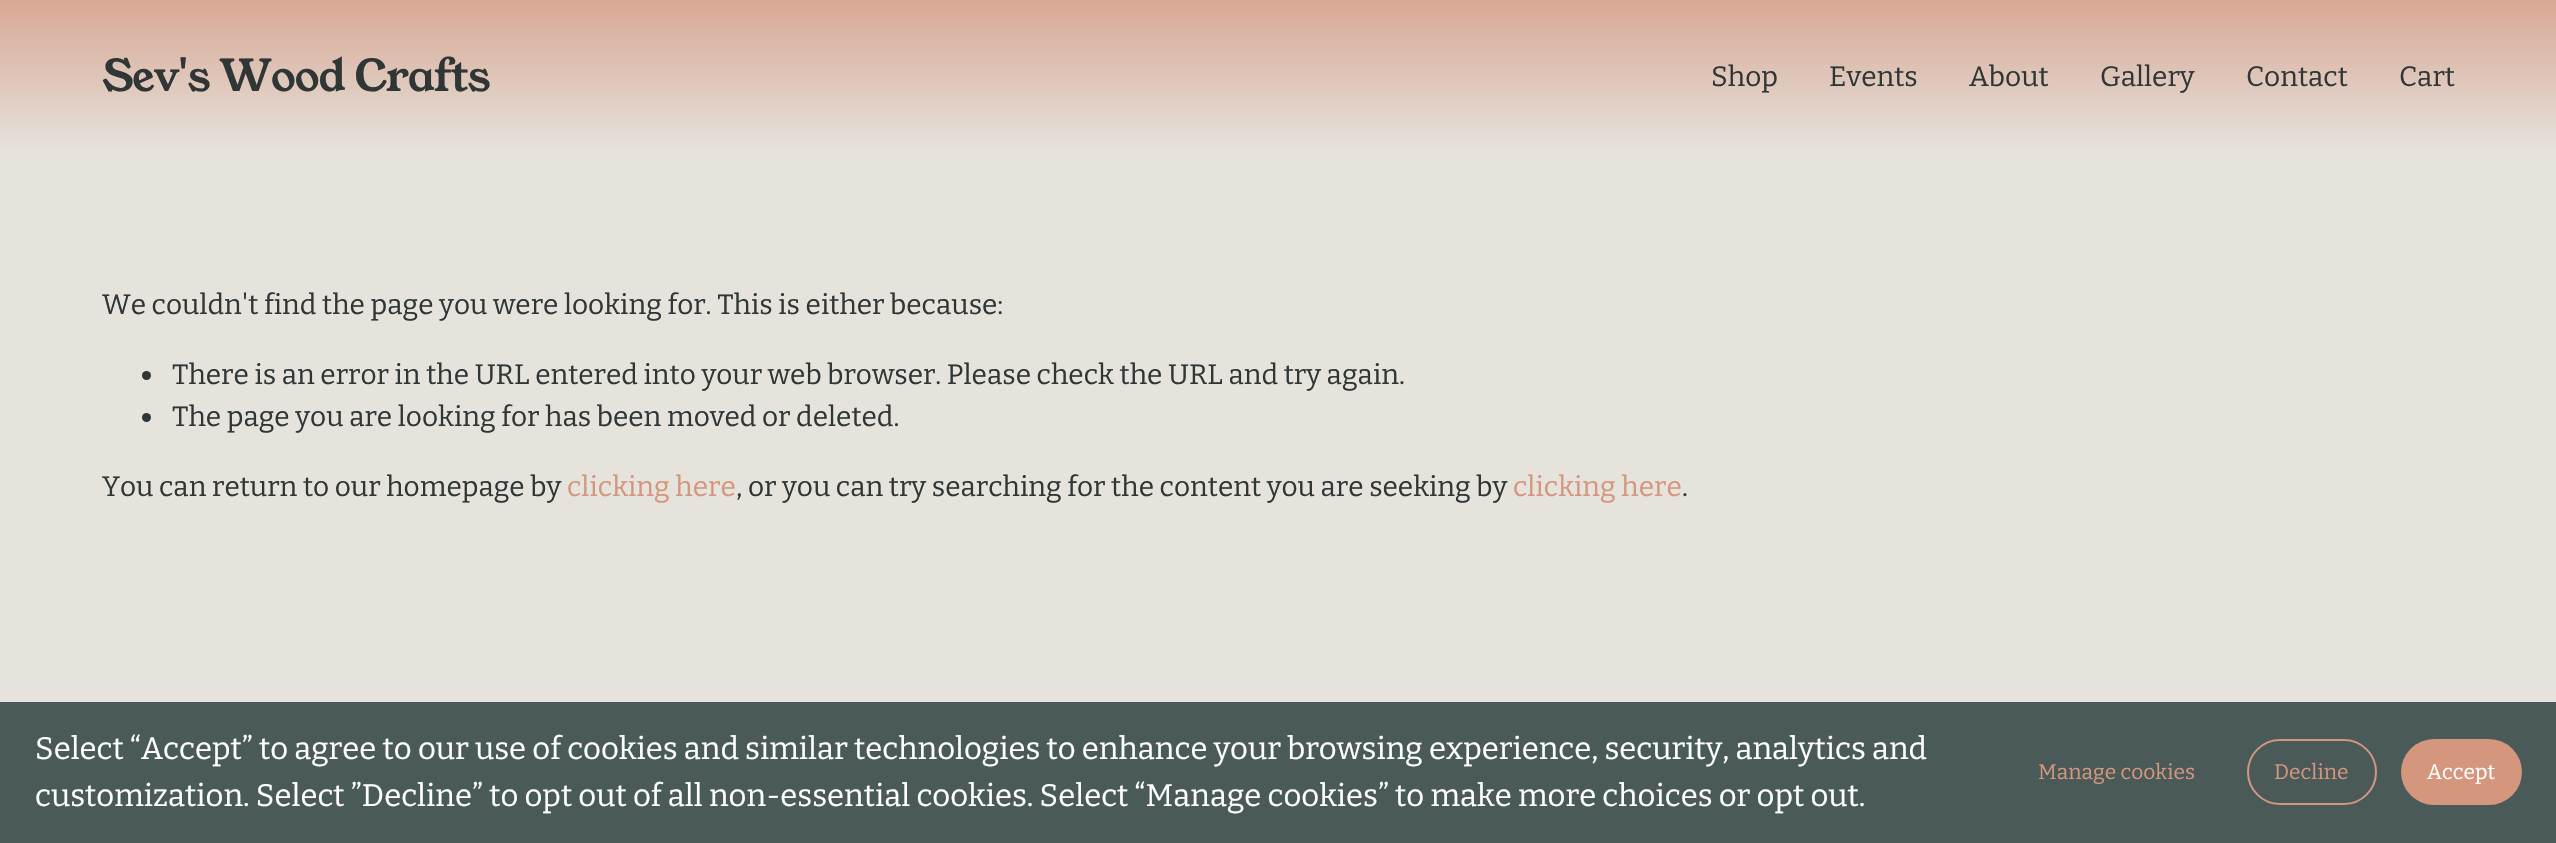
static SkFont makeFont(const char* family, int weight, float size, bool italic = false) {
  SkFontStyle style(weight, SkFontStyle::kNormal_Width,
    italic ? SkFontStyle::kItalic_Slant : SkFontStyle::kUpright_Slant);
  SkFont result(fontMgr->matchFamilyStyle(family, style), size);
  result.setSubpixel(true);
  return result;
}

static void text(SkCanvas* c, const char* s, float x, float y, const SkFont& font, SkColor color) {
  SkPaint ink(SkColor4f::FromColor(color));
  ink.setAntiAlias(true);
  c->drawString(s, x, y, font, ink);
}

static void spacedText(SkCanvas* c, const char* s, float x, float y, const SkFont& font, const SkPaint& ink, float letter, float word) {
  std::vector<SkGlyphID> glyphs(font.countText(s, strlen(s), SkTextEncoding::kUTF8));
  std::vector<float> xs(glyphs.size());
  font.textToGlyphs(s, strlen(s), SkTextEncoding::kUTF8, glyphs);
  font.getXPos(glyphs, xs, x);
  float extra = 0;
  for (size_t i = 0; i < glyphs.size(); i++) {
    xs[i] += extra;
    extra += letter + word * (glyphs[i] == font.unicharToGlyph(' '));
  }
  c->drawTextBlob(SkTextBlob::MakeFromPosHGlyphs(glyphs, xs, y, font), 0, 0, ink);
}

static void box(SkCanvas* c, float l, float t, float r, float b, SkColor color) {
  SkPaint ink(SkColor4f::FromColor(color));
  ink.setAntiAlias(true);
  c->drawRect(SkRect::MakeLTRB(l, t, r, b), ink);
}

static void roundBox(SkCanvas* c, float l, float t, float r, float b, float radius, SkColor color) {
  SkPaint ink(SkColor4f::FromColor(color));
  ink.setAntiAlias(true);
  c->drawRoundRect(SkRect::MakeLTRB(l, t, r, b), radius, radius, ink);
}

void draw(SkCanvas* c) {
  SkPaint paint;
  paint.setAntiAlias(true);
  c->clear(0xffe5e3dc);
  {
    const SkColor colors[] = {0xffd8a894, 0xffe5e3dd};
    const float stops[] = {0, 1};
    const SkPoint ends[] = {{1278, 0}, {1278, 154}};
    paint.setShader(SkGradientShader::MakeLinear(ends, colors, stops, 2, SkTileMode::kClamp));
    paint.setAlpha(255);
  }
  c->drawRect(SkRect::MakeLTRB(0, 0, 2556, 147), paint);
  SkFont face1 = makeFont("Young Serif", 400, 43.25f);
  paint.setShader(nullptr);
  paint.setColor(0xff303636);
  spacedText(c, "Sev's Wood Crafts", 102, 91, face1, paint, -0.9f, 0);
  SkFont face2 = makeFont("Bitter", 400, 28);
  text(c, "Shop", 1711, 86, face2, 0xff303636);
  text(c, "Events", 1829, 86, face2, 0xff303636);
  text(c, "About", 1969, 86, face2, 0xff303636);
  text(c, "Gallery", 2100, 86, face2, 0xff303636);
  text(c, "Contact", 2246, 86, face2, 0xff303636);
  text(c, "Cart", 2399, 86, face2, 0xff303636);
  text(c, "We couldn't find the page you were looking for. This is either because:", 102, 314, face2, 0xff303636);
  c->drawCircle(146.5f, 375.5f, 4.5f, paint);
  text(c, "There is an error in the URL entered into your web browser. Please check the URL and try again.", 172, 384, face2, 0xff303636);
  c->drawCircle(146.5f, 417.5f, 4.5f, paint);
  text(c, "The page you are looking for has been moved or deleted.", 172, 426, face2, 0xff303636);
  text(c, "You can return to our homepage by", 102, 496, face2, 0xff303636);
  text(c, "clicking here", 567, 496, face2, 0xffd4967d);
  text(c, ", or you can try searching for the content you are seeking by", 736, 496, face2, 0xff303636);
  text(c, "clicking here", 1513, 496, face2, 0xffd4967d);
  text(c, ".", 1682, 496, face2, 0xff303636);
  box(c, 0, 702, 2556, 843, 0xff495a58);
  SkFont face3 = makeFont("Bitter", 400, 31.07f);
  text(c, "Select “Accept” to agree to our use of cookies and similar technologies to enhance your browsing experience, security, analytics and", 35, 759, face3, 0xffffffff);
  text(c, "customization. Select ”Decline” to opt out of all non-essential cookies. Select “Manage cookies” to make more choices or opt out.", 35, 806, face3, 0xffffffff);
  SkFont face4 = makeFont("Bitter", 400, 21);
  text(c, "Manage cookies", 2038, 779, face4, 0xffd4967d);
  paint.setStyle(SkPaint::kStroke_Style);
  paint.setStrokeWidth(2);
  paint.setColor(0xffd4967d);
  c->drawRoundRect(SkRect::MakeLTRB(2248, 740, 2376, 804), 32, 32, paint);
  text(c, "Decline", 2274, 779, face4, 0xffd4967d);
  roundBox(c, 2401, 739, 2522, 805, 33, 0xffd4967d);
  text(c, "Accept", 2427, 779, face4, 0xffffffff);
}
